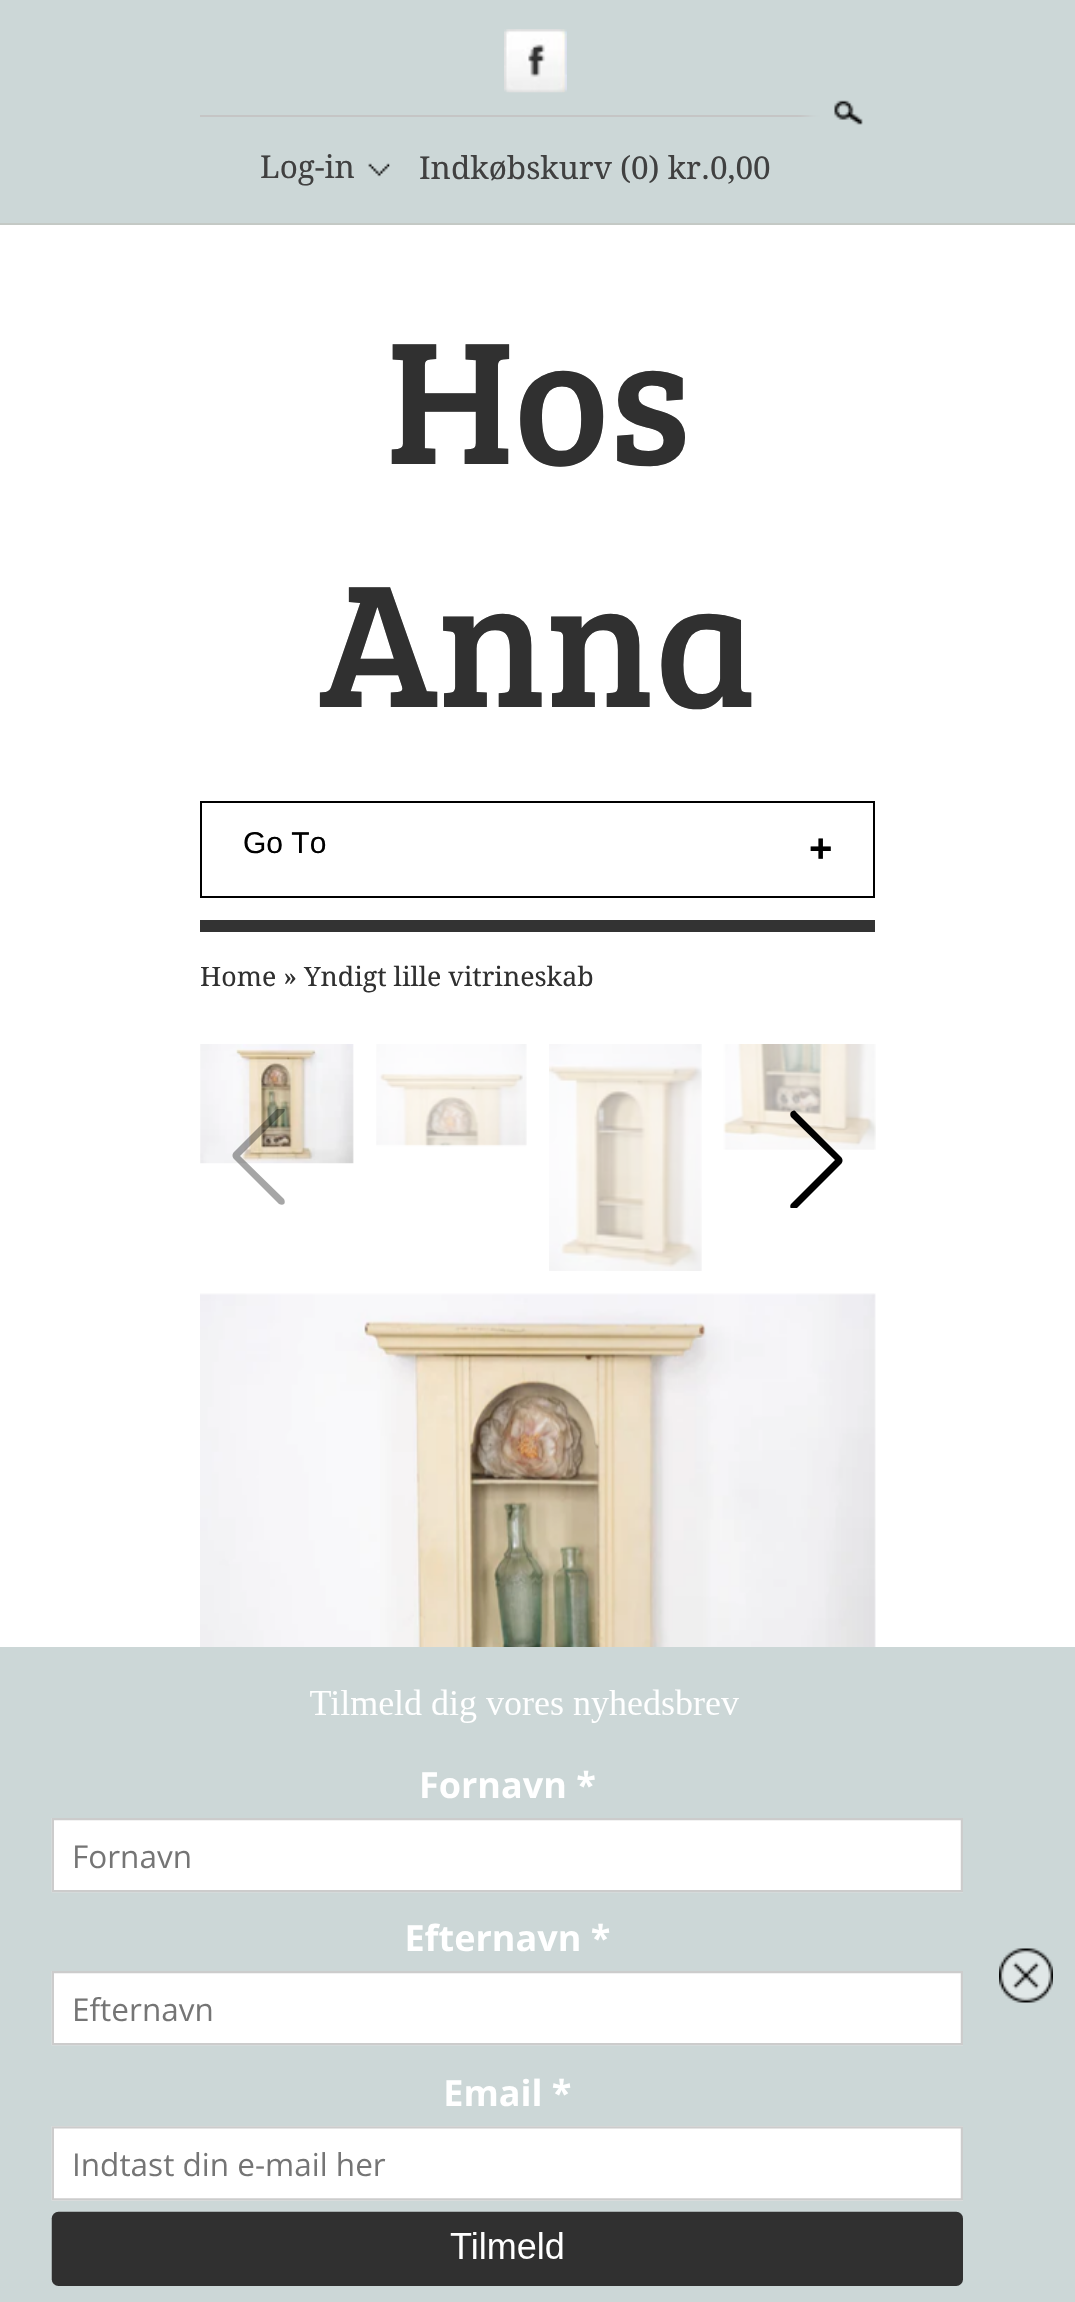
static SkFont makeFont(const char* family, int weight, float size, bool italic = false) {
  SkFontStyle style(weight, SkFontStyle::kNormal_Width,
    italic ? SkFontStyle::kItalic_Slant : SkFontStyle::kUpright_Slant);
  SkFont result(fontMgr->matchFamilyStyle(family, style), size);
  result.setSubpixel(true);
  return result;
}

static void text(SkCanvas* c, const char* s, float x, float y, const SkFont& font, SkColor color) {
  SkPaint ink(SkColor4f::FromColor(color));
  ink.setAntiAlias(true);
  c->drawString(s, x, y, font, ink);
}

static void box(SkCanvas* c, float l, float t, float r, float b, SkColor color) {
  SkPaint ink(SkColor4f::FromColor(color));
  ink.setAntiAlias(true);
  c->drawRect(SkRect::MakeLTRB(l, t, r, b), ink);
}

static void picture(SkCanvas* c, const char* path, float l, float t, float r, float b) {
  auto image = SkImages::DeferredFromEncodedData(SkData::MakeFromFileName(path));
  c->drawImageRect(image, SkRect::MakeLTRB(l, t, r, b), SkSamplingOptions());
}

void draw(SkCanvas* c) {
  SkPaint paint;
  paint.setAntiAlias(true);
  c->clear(0xffccd7d7);
  box(c, 200, 115, 821, 117, 0xffc5c5c5);
  picture(c, "img_01.png", 504, 29, 567, 93);
  picture(c, "img_02.png", 368, 163, 390, 177);
  SkFont face1 = makeFont("Droid Serif", 400, 31.5f);
  text(c, "Log-in", 260, 178, face1, 0xff404040);
  text(c, "Indkøbskurv (0) kr.0,00", 419, 179, face1, 0xff404040);
  paint.setColor(0xffccd7d7);
  paint.setMaskFilter(SkMaskFilter::MakeBlur(kNormal_SkBlurStyle, 5.5f));
  c->drawRect(SkRect::MakeLTRB(808, 20, 866, 203), paint);
  paint.setMaskFilter(nullptr);
  picture(c, "img_03.png", 834, 100, 863, 125);
  box(c, 0, 225, 1075, 1647, 0xffffffff);
  box(c, 0, 223, 1075, 225, 0xffc4c9c5);
  SkFont face2 = makeFont("Bree Serif", 400, 180);
  text(c, "Hos", 386, 464, face2, 0xff303030);
  text(c, "Anna", 319, 707, face2, 0xff303030);
  box(c, 200, 920, 875, 932, 0xff333333);
  paint.setStyle(SkPaint::kStroke_Style);
  paint.setStrokeWidth(2);
  paint.setColor(0xff000000);
  c->drawRect(SkRect::MakeLTRB(201, 802, 874, 897), paint);
  SkFont face3 = makeFont("Liberation Sans", 400, 30);
  text(c, "Go To", 243, 853, face3, 0xff000000);
  SkFont face4 = makeFont("Liberation Sans", 700, 40);
  text(c, "+", 809, 862, face4, 0xff000000);
  SkFont face5 = makeFont("Droid Serif", 400, 26.75f);
  text(c, "Home » Yndigt lille vitrineskab", 200, 986, face5, 0xff303030);
  picture(c, "img_04.png", 200, 1044, 354, 1164);
  picture(c, "img_05.png", 376, 1044, 527, 1147);
  picture(c, "img_06.png", 549, 1044, 702, 1271);
  picture(c, "img_07.png", 723, 1044, 876, 1150);
  c->save();
  c->clipRect(SkRect::MakeLTRB(209, 1109, 308, 1208));
  paint.setStyle(SkPaint::kFill_Style);
  paint.setColor(0x59000000);
  c->drawPath(SkPathBuilder().moveTo(284, 1107).cubicTo(285, 1108, 285, 1111, 284, 1112).lineTo(240, 1156).lineTo(284, 1199).cubicTo(285, 1201, 285, 1203, 284, 1204).cubicTo(283, 1205, 281, 1205, 279, 1204).lineTo(234, 1159).cubicTo(232, 1157, 232, 1154, 234, 1152).lineTo(279, 1107).cubicTo(281, 1106, 283, 1106, 284, 1107).close().detach(), paint);
  c->restore();
  c->save();
  c->clipRect(SkRect::MakeLTRB(767, 1109, 866, 1208));
  paint.setColor(0xff000000);
  c->drawPath(SkPathBuilder().moveTo(791, 1209).cubicTo(790, 1207, 790, 1205, 791, 1204).lineTo(835, 1160).lineTo(791, 1117).cubicTo(790, 1115, 790, 1113, 791, 1112).cubicTo(793, 1110, 795, 1110, 796, 1112).lineTo(841, 1157).cubicTo(843, 1159, 843, 1162, 841, 1164).lineTo(796, 1209).cubicTo(795, 1210, 793, 1210, 791, 1209).close().detach(), paint);
  c->restore();
  picture(c, "img_08.png", 200, 1293, 876, 1647);
  picture(c, "img_09.png", 0, 1647, 1075, 2302);
}
